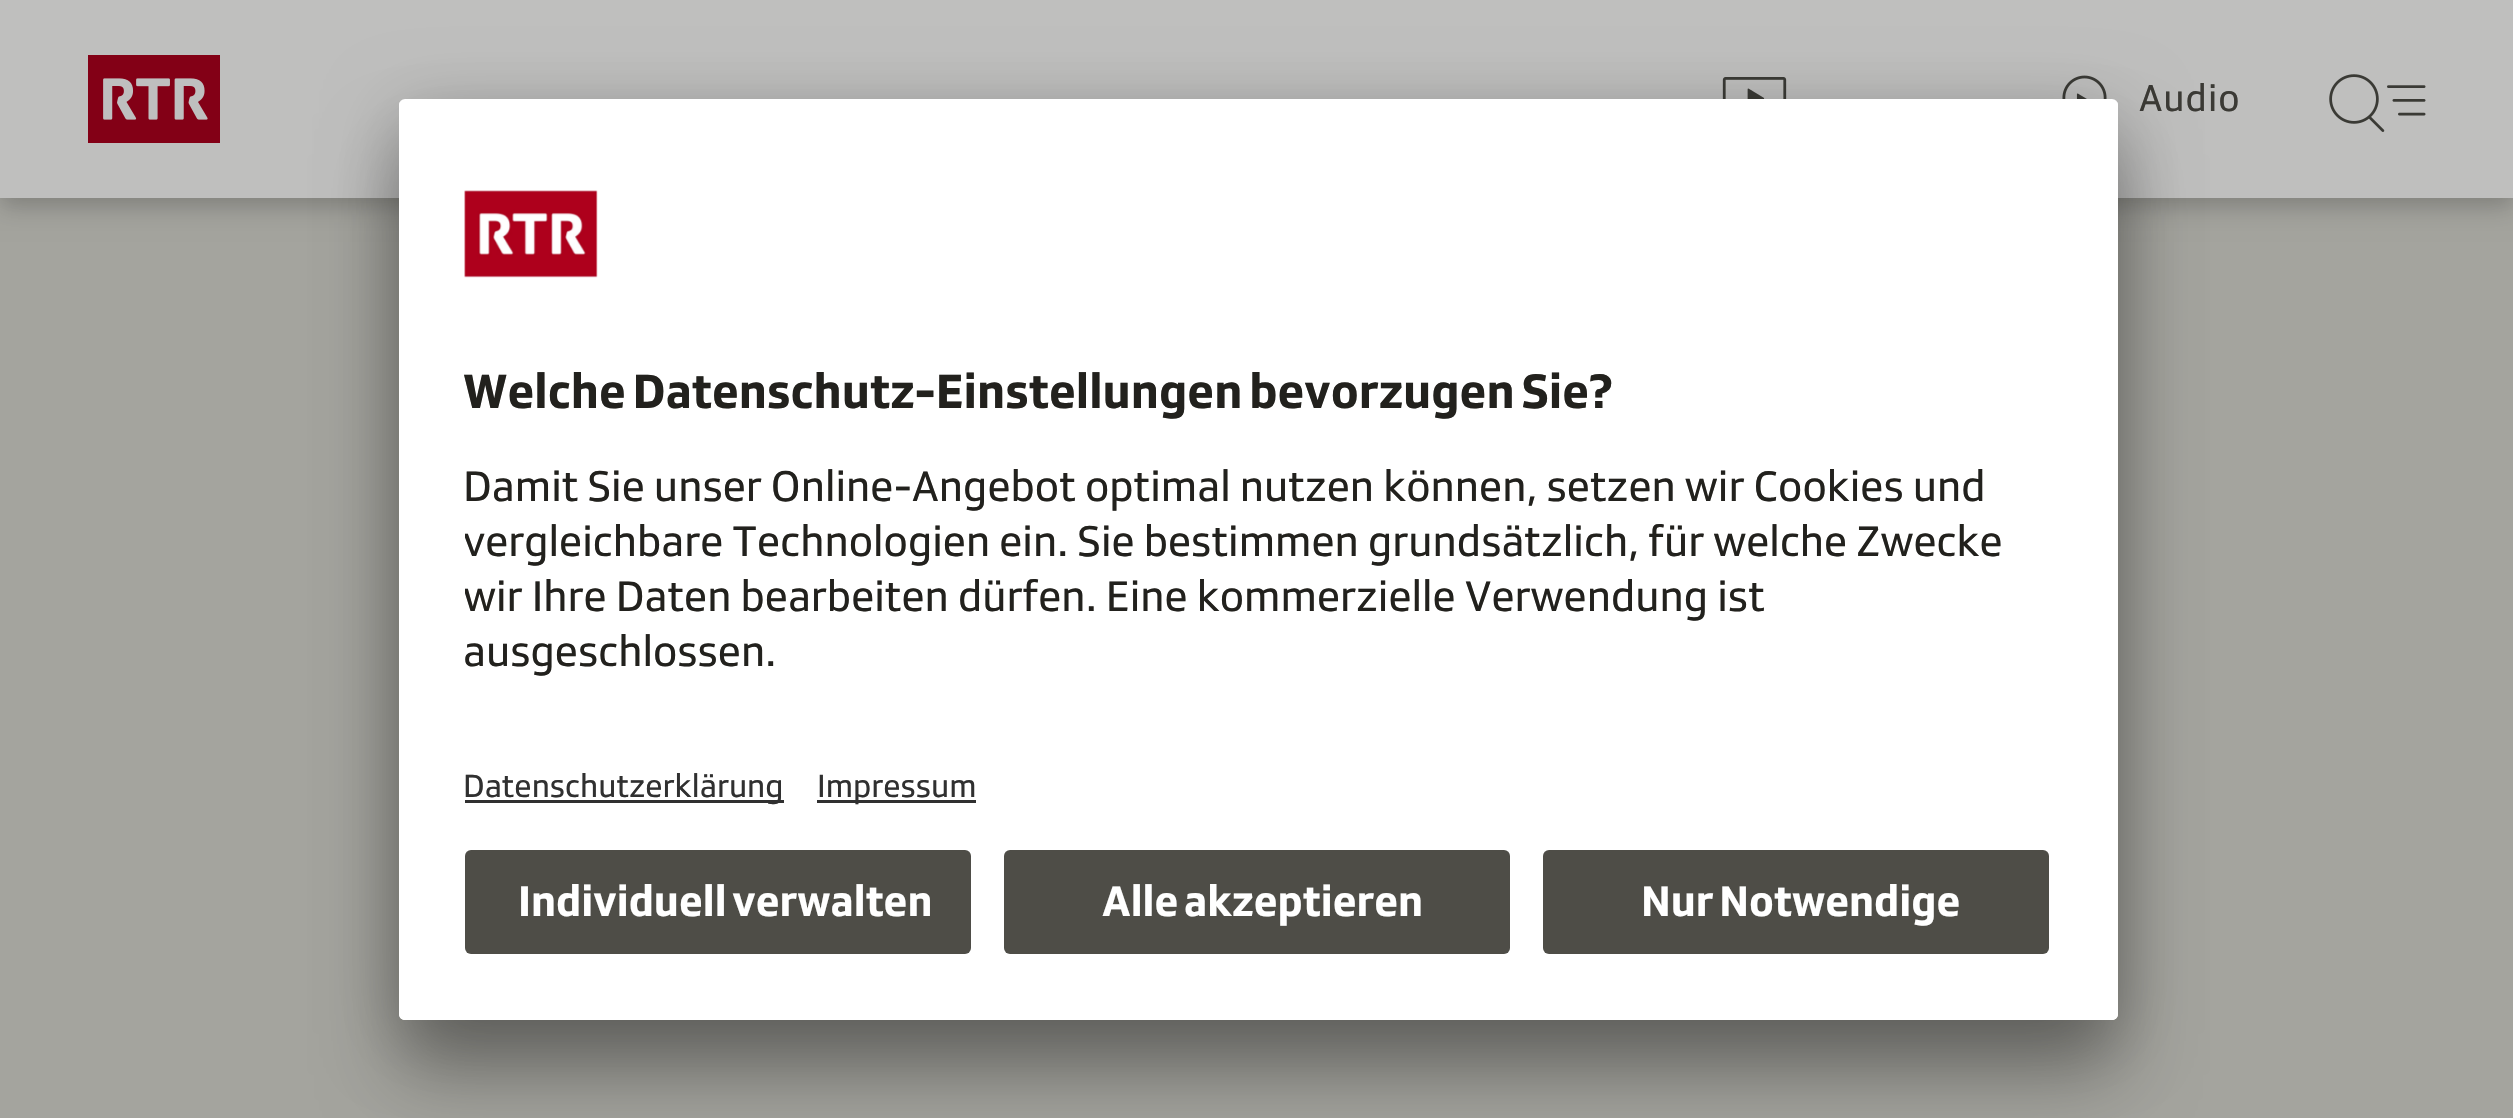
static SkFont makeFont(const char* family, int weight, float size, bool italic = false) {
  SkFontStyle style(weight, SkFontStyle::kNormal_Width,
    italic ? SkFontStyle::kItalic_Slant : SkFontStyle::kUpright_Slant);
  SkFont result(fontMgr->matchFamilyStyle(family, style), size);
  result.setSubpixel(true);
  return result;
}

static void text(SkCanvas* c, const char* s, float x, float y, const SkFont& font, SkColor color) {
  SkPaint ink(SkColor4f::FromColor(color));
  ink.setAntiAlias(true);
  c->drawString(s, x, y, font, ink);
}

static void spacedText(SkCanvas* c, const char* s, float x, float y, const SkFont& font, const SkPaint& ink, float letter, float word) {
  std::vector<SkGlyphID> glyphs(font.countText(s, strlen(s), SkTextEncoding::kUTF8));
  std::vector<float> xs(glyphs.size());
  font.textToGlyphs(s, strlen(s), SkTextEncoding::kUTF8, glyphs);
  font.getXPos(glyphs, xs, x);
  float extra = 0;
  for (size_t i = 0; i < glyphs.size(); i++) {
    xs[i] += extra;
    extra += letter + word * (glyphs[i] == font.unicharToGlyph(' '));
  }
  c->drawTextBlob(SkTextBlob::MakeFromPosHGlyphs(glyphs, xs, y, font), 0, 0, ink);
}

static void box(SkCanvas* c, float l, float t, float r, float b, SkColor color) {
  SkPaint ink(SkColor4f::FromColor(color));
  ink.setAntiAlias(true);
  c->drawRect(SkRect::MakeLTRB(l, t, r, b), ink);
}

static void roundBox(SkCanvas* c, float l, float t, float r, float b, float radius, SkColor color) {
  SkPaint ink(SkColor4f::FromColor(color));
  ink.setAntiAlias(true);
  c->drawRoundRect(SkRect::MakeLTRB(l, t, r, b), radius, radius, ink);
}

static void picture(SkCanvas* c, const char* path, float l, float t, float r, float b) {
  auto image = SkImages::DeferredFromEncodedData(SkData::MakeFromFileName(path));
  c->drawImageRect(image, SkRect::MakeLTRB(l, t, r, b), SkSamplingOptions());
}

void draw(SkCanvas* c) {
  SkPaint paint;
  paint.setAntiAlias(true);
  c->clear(0xffa4a49e);
  paint.setColor(0x14000000);
  paint.setMaskFilter(SkMaskFilter::MakeBlur(kNormal_SkBlurStyle, 11));
  c->drawRect(SkRect::MakeLTRB(0, 83, 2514, 198), paint);
  paint.setMaskFilter(nullptr);
  paint.setColor(0x29000000);
  paint.setMaskFilter(SkMaskFilter::MakeBlur(kNormal_SkBlurStyle, 11));
  c->drawRect(SkRect::MakeLTRB(0, 94, 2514, 209), paint);
  paint.setMaskFilter(nullptr);
  box(c, 0, 0, 2513, 198, 0xffbfbfbe);
  picture(c, "img_01.png", 88, 55, 220, 143);
  picture(c, "img_02.png", 1722, 77, 1787, 99);
  picture(c, "img_03.png", 2062, 75, 2107, 99);
  SkFont face1 = makeFont("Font", 400, 38.5f);
  paint.setColor(0xff3b3a35);
  spacedText(c, "Audio", 2139, 111, face1, paint, 1, 0);
  picture(c, "img_04.png", 2329, 74, 2426, 132);
  paint.setColor(0x4d000000);
  paint.setMaskFilter(SkMaskFilter::MakeBlur(kNormal_SkBlurStyle, 38.5f));
  c->drawRoundRect(SkRect::MakeLTRB(399, 154, 2118, 1075), 6, 6, paint);
  paint.setMaskFilter(nullptr);
  paint.setColor(0x38000000);
  paint.setMaskFilter(SkMaskFilter::MakeBlur(kNormal_SkBlurStyle, 36));
  c->drawRoundRect(SkRect::MakeLTRB(399, 113, 2118, 1034), 6, 6, paint);
  paint.setMaskFilter(nullptr);
  roundBox(c, 399, 99, 2118, 1020, 6, 0xffffffff);
  c->save();
  c->clipPath(SkPathBuilder().moveTo(405, 99).lineTo(2112, 99).cubicTo(2115.5f, 99, 2118, 101.5f, 2118, 105).lineTo(2118, 1014).cubicTo(2118, 1017.5f, 2115.5f, 1020, 2112, 1020).lineTo(405, 1020).cubicTo(401.5f, 1020, 399, 1017.5f, 399, 1014).lineTo(399, 105).cubicTo(399, 101.5f, 401.5f, 99, 405, 99).close().detach(), true);
  c->clipPath(SkPathBuilder().moveTo(405, 99).lineTo(2112, 99).cubicTo(2115.5f, 99, 2118, 101.5f, 2118, 105).lineTo(2118, 828).lineTo(399, 828).lineTo(399, 105).cubicTo(399, 101.5f, 401.5f, 99, 405, 99).close().detach(), true);
  box(c, 399, 102, 2118, 828, 0xffffffff);
  c->restore();
  picture(c, "img_05.png", 464, 190, 598, 278);
  SkFont face2 = makeFont("Font", 700, 49.5f);
  paint.setColor(0xff22211d);
  spacedText(c, "Welche Datenschutz-Einstellungen bevorzugen Sie?", 463, 408, face2, paint, 0, -3);
  SkFont face3 = makeFont("Font", 400, 44);
  text(c, "Damit Sie unser Online-Angebot optimal nutzen können, setzen wir Cookies und", 463, 501, face3, 0xff22211d);
  c->save();
  c->clipRect(SkRect::MakeLTRB(465, 448, 2052, 690));
  text(c, "vergleichbare Technologien ein. Sie bestimmen grundsätzlich, für welche Zwecke", 463, 556, face3, 0xff22211d);
  text(c, "wir Ihre Daten bearbeiten dürfen. Eine kommerzielle Verwendung ist", 463, 611, face3, 0xff22211d);
  c->restore();
  text(c, "ausgeschlossen.", 463, 666, face3, 0xff22211d);
  box(c, 465, 800, 784, 803, 0xff303030);
  SkFont face4 = makeFont("Font", 400, 33);
  text(c, "Datenschutzerklärung", 463, 797, face4, 0xff303030);
  box(c, 817, 800, 976, 803, 0xff303030);
  text(c, "Impressum", 817, 797, face4, 0xff303030);
  paint.setColor(0xffffffff);
  c->drawPath(SkPathBuilder().moveTo(399, 828).lineTo(2118, 828).lineTo(2118, 1014).cubicTo(2118, 1017.5f, 2115.5f, 1020, 2112, 1020).lineTo(405, 1020).cubicTo(401.5f, 1020, 399, 1017.5f, 399, 1014).close().detach(), paint);
  roundBox(c, 465, 850, 971, 954, 6, 0xff4e4d47);
  SkFont face5 = makeFont("Font", 700, 44);
  spacedText(c, "Individuell verwalten", 518, 916, face5, paint, 0, -3);
  roundBox(c, 1004, 850, 1510, 954, 6, 0xff4e4d47);
  spacedText(c, "Alle akzeptieren", 1102, 916, face5, paint, 0, -3);
  roundBox(c, 1543, 850, 2049, 954, 6, 0xff4e4d47);
  spacedText(c, "Nur Notwendige", 1641, 916, face5, paint, 0, -3);
}
